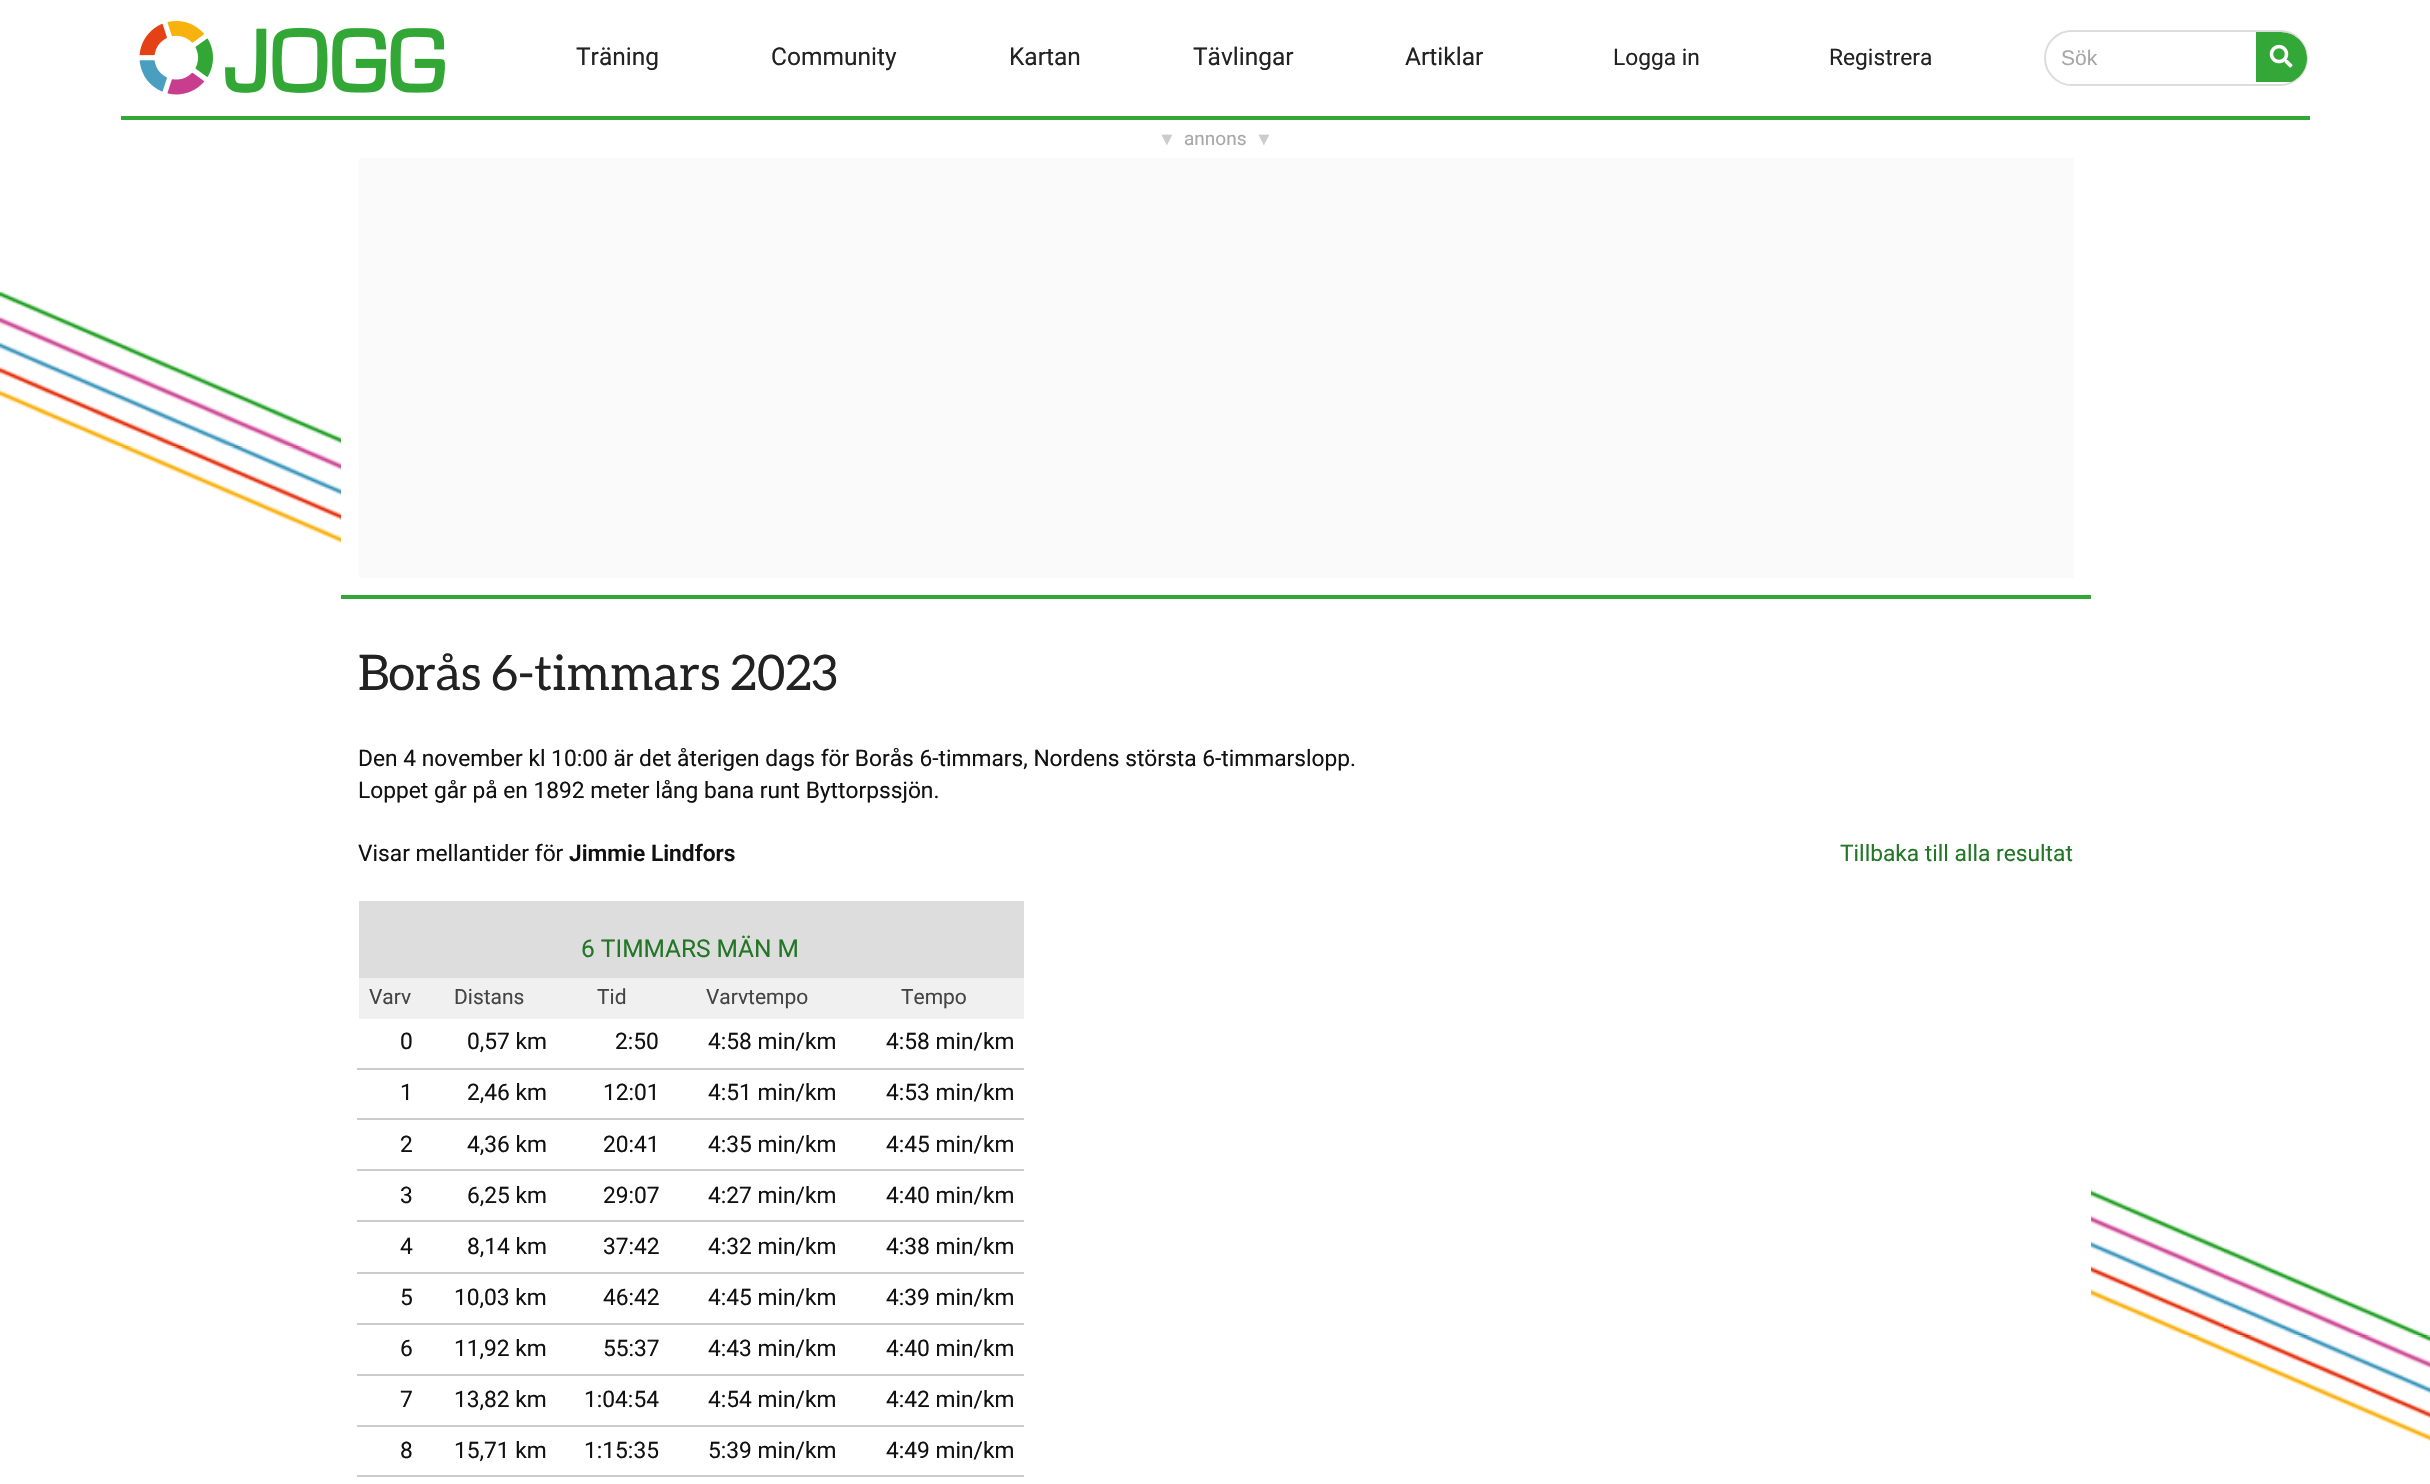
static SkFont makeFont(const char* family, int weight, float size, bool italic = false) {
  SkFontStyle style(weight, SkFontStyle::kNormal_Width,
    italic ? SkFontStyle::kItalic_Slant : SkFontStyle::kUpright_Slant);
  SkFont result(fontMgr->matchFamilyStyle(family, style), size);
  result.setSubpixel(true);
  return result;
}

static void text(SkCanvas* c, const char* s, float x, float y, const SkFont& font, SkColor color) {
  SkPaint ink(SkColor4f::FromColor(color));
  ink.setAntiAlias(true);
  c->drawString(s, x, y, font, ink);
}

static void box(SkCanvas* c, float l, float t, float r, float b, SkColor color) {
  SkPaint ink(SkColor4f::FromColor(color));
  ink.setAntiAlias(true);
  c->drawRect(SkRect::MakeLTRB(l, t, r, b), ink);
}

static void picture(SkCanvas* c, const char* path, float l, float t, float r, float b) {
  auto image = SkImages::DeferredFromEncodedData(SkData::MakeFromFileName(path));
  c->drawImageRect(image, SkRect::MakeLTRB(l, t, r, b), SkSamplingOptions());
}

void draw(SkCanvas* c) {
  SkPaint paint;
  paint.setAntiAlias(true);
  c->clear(0xffffffff);
  box(c, 121, 116, 2310, 120, 0xff33a737);
  picture(c, "img_01.png", 139, 21, 445, 95);
  SkFont face1 = makeFont("Roboto", 400, 24.5f);
  text(c, "Träning", 576, 65, face1, 0xff222222);
  text(c, "Community", 771, 65, face1, 0xff222222);
  text(c, "Kartan", 1009, 65, face1, 0xff222222);
  text(c, "Tävlingar", 1193, 65, face1, 0xff222222);
  text(c, "Artiklar", 1405, 65, face1, 0xff222222);
  SkFont face2 = makeFont("Roboto", 400, 22.75f);
  text(c, "Logga in", 1613, 65, face2, 0xff222222);
  text(c, "Registrera", 1829, 65, face2, 0xff222222);
  paint.setStyle(SkPaint::kStroke_Style);
  paint.setStrokeWidth(2);
  paint.setColor(0xffdcdcdc);
  c->drawRoundRect(SkRect::MakeLTRB(2045, 31, 2307, 85), 27, 27, paint);
  c->save();
  c->clipPath(SkPathBuilder().moveTo(2072, 32).lineTo(2281, 32).cubicTo(2295.5f, 32, 2307, 43.5f, 2307, 58).cubicTo(2307, 72.5f, 2295.5f, 84, 2281, 84).lineTo(2072, 84).cubicTo(2057.5f, 84, 2046, 72.5f, 2046, 58).cubicTo(2046, 43.5f, 2057.5f, 32, 2072, 32).close().detach(), true);
  box(c, 2060, 32, 2256, 84, 0xffffffff);
  c->restore();
  SkFont face3 = makeFont("Liberation Sans", 400, 21);
  text(c, "Sök", 2061, 65, face3, 0xffa7a7a7);
  c->save();
  c->clipPath(SkPathBuilder().moveTo(2072, 32).lineTo(2281, 32).cubicTo(2295.5f, 32, 2307, 43.5f, 2307, 58).cubicTo(2307, 72.5f, 2295.5f, 84, 2281, 84).lineTo(2072, 84).cubicTo(2057.5f, 84, 2046, 72.5f, 2046, 58).cubicTo(2046, 43.5f, 2057.5f, 32, 2072, 32).close().detach(), true);
  paint.setStyle(SkPaint::kFill_Style);
  paint.setColor(0xff33a737);
  c->drawPath(SkPathBuilder().moveTo(2256, 32).lineTo(2281, 32).cubicTo(2295.5f, 32, 2307, 43.5f, 2307, 58).lineTo(2307, 82).lineTo(2256, 82).close().detach(), paint);
  c->restore();
  picture(c, "img_02.png", 2269, 44, 2293, 68);
  picture(c, "img_03.png", 0, 290, 2430, 1441);
  box(c, 341, 437, 2091, 1296, 0xffffffff);
  box(c, 341, 595, 2091, 599, 0xff33a737);
  SkFont face4 = makeFont("Liberation Sans", 400, 18);
  text(c, "▼", 1158, 145, face4, 0xffcccccc);
  SkFont face5 = makeFont("Roboto", 400, 19);
  text(c, "annons", 1184, 145, face5, 0xffa7a7a7);
  text(c, "▼", 1255, 145, face4, 0xffcccccc);
  box(c, 359, 158, 2074, 578, 0xfffafafa);
  SkFont face6 = makeFont("Aleo", 400, 49);
  text(c, "Borås 6-timmars 2023", 358, 690, face6, 0xff222222);
  text(c, "Den 4 november kl 10:00 är det återigen dags för Borås 6-timmars, Nordens största 6-timmarslopp.", 358, 766, face2, 0xff111111);
  text(c, "Loppet går på en 1892 meter lång bana runt Byttorpssjön.", 358, 798, face2, 0xff111111);
  text(c, "Visar mellantider för", 358, 861, face2, 0xff111111);
  SkFont face7 = makeFont("Roboto", 600, 22.75f);
  text(c, "Jimmie Lindfors", 569, 861, face7, 0xff111111);
  text(c, "Tillbaka till alla resultat", 1840, 861, face2, 0xff227626);
  box(c, 359, 901, 1024, 978, 0xffdddddd);
  text(c, "6 TIMMARS MÄN M", 581, 957, face1, 0xff227626);
  box(c, 359, 978, 1024, 1019, 0xfff0f0f0);
  SkFont face8 = makeFont("Roboto", 400, 21);
  text(c, "Varv", 369, 1004, face8, 0xff444444);
  text(c, "Distans", 454, 1004, face8, 0xff444444);
  text(c, "Tid", 597, 1004, face8, 0xff444444);
  text(c, "Varvtempo", 706, 1004, face8, 0xff444444);
  text(c, "Tempo", 901, 1004, face8, 0xff444444);
  text(c, "0", 400, 1049, face2, 0xff111111);
  text(c, "0,57 km", 467, 1049, face2, 0xff111111);
  text(c, "2:50", 615, 1049, face2, 0xff111111);
  text(c, "4:58 min/km", 708, 1049, face2, 0xff111111);
  text(c, "4:58 min/km", 886, 1049, face2, 0xff111111);
  text(c, "1", 400, 1100, face2, 0xff111111);
  text(c, "2,46 km", 467, 1100, face2, 0xff111111);
  text(c, "12:01", 603, 1100, face2, 0xff111111);
  text(c, "4:51 min/km", 708, 1100, face2, 0xff111111);
  box(c, 357, 1068, 1024, 1070, 0xffcccccc);
  text(c, "4:53 min/km", 886, 1100, face2, 0xff111111);
  text(c, "2", 400, 1152, face2, 0xff111111);
  text(c, "4,36 km", 467, 1152, face2, 0xff111111);
  text(c, "20:41", 603, 1152, face2, 0xff111111);
  text(c, "4:35 min/km", 708, 1152, face2, 0xff111111);
  box(c, 357, 1118, 1024, 1120, 0xffcccccc);
  text(c, "4:45 min/km", 886, 1152, face2, 0xff111111);
  text(c, "3", 400, 1203, face2, 0xff111111);
  text(c, "6,25 km", 467, 1203, face2, 0xff111111);
  text(c, "29:07", 603, 1203, face2, 0xff111111);
  text(c, "4:27 min/km", 708, 1203, face2, 0xff111111);
  box(c, 357, 1169, 1024, 1171, 0xffcccccc);
  text(c, "4:40 min/km", 886, 1203, face2, 0xff111111);
  text(c, "4", 400, 1254, face2, 0xff111111);
  text(c, "8,14 km", 467, 1254, face2, 0xff111111);
  text(c, "37:42", 603, 1254, face2, 0xff111111);
  text(c, "4:32 min/km", 708, 1254, face2, 0xff111111);
  box(c, 357, 1220, 1024, 1222, 0xffcccccc);
  text(c, "4:38 min/km", 886, 1254, face2, 0xff111111);
  text(c, "5", 400, 1305, face2, 0xff111111);
  text(c, "10,03 km", 454, 1305, face2, 0xff111111);
  text(c, "46:42", 603, 1305, face2, 0xff111111);
  text(c, "4:45 min/km", 708, 1305, face2, 0xff111111);
  box(c, 357, 1272, 1024, 1274, 0xffcccccc);
  text(c, "4:39 min/km", 886, 1305, face2, 0xff111111);
  text(c, "6", 400, 1356, face2, 0xff111111);
  text(c, "11,92 km", 454, 1356, face2, 0xff111111);
  text(c, "55:37", 603, 1356, face2, 0xff111111);
  text(c, "4:43 min/km", 708, 1356, face2, 0xff111111);
  box(c, 357, 1323, 1024, 1325, 0xffcccccc);
  text(c, "4:40 min/km", 886, 1356, face2, 0xff111111);
  text(c, "7", 400, 1407, face2, 0xff111111);
  text(c, "13,82 km", 454, 1407, face2, 0xff111111);
  text(c, "1:04:54", 584, 1407, face2, 0xff111111);
  text(c, "4:54 min/km", 708, 1407, face2, 0xff111111);
  box(c, 357, 1374, 1024, 1376, 0xffcccccc);
  text(c, "4:42 min/km", 886, 1407, face2, 0xff111111);
  text(c, "8", 400, 1458, face2, 0xff111111);
  text(c, "15,71 km", 454, 1458, face2, 0xff111111);
  text(c, "1:15:35", 584, 1458, face2, 0xff111111);
  text(c, "5:39 min/km", 708, 1458, face2, 0xff111111);
  box(c, 357, 1425, 1024, 1427, 0xffcccccc);
  text(c, "4:49 min/km", 886, 1458, face2, 0xff111111);
  box(c, 357, 1475, 1024, 1477, 0xffcccccc);
}
